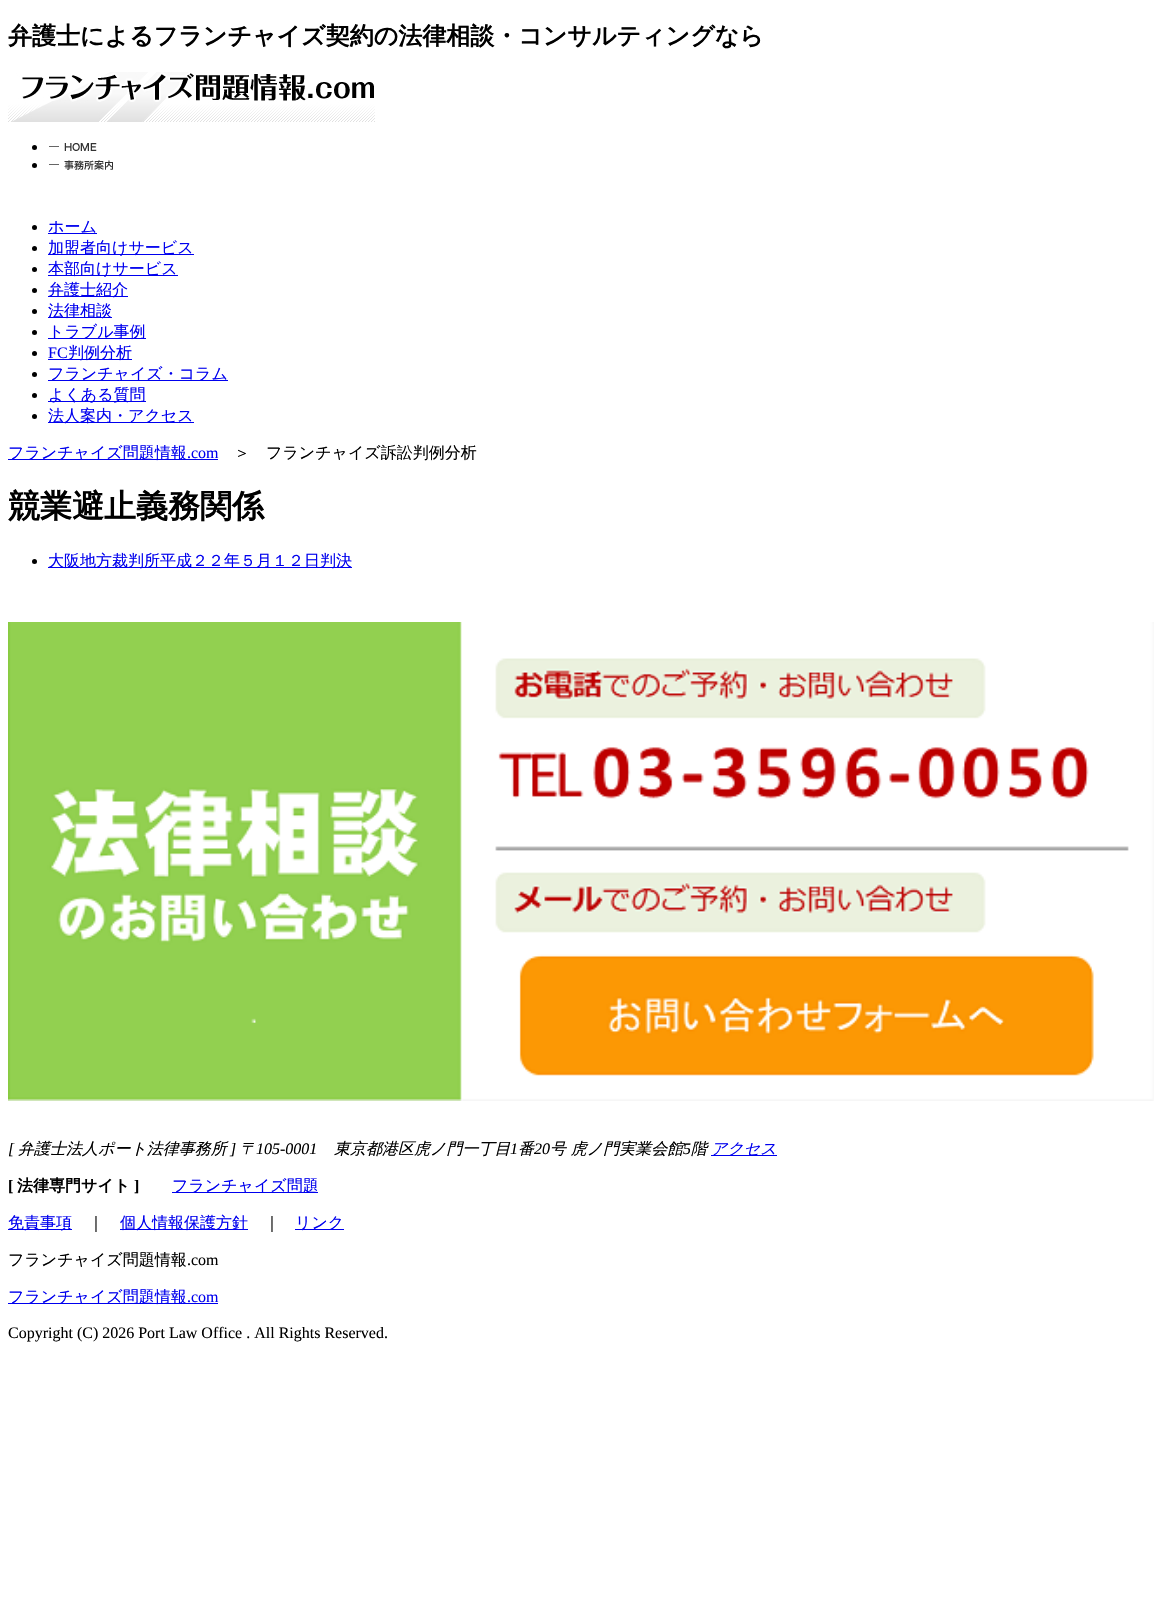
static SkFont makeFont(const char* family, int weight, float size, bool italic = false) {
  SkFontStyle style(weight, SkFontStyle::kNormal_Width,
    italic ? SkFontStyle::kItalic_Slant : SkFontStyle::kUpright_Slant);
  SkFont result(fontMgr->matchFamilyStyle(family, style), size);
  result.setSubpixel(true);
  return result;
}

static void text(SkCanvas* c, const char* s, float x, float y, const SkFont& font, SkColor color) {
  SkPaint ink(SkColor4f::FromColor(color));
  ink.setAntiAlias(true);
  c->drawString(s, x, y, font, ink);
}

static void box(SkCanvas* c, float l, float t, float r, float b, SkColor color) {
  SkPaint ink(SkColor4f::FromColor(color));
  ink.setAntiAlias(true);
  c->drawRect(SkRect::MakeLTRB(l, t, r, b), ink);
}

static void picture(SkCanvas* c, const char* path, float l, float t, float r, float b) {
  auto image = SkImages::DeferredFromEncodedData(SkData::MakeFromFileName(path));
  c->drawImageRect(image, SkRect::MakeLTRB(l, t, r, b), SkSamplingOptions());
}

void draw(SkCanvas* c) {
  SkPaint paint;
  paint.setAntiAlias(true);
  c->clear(0xffffffff);
  SkFont face1 = makeFont("WenQuanYi Zen Hei", 700, 24);
  text(c, "弁護士によるフランチャイズ契約の法律相談・コンサルティングなら", 8, 44, face1, 0xff000000);
  picture(c, "img_01.png", 8, 72, 375, 122);
  paint.setColor(0xff000000);
  c->drawCircle(34.5f, 147.5f, 2.5f, paint);
  picture(c, "img_02.png", 49, 143, 97, 151);
  c->drawCircle(34.5f, 165.5f, 2.5f, paint);
  picture(c, "img_03.png", 49, 160, 113, 170);
  c->drawCircle(34.5f, 227.5f, 2.5f, paint);
  box(c, 48, 233, 97, 234, 0xff0000ee);
  SkFont face2 = makeFont("WenQuanYi Zen Hei", 500, 16);
  text(c, "ホーム", 48, 232, face2, 0xff0000ee);
  c->drawCircle(34.5f, 248.5f, 2.5f, paint);
  box(c, 48, 254, 194, 255, 0xff0000ee);
  text(c, "加盟者向けサービス", 48, 253, face2, 0xff0000ee);
  c->drawCircle(34.5f, 269.5f, 2.5f, paint);
  box(c, 48, 275, 178, 276, 0xff0000ee);
  text(c, "本部向けサービス", 48, 274, face2, 0xff0000ee);
  c->drawCircle(34.5f, 290.5f, 2.5f, paint);
  box(c, 48, 296, 128, 297, 0xff0000ee);
  text(c, "弁護士紹介", 48, 295, face2, 0xff0000ee);
  c->drawCircle(34.5f, 311.5f, 2.5f, paint);
  box(c, 48, 317, 112, 318, 0xff0000ee);
  text(c, "法律相談", 48, 316, face2, 0xff0000ee);
  c->drawCircle(34.5f, 332.5f, 2.5f, paint);
  box(c, 48, 338, 146, 339, 0xff0000ee);
  text(c, "トラブル事例", 48, 337, face2, 0xff0000ee);
  c->drawCircle(34.5f, 353.5f, 2.5f, paint);
  SkFont face3 = makeFont("Liberation Serif", 400, 16);
  text(c, "FC", 48, 358, face3, 0xff0000ee);
  box(c, 48, 359, 132, 360, 0xff0000ee);
  text(c, "判例分析", 68, 358, face2, 0xff0000ee);
  c->drawCircle(34.5f, 374.5f, 2.5f, paint);
  box(c, 48, 380, 228, 381, 0xff0000ee);
  text(c, "フランチャイズ・コラム", 48, 379, face2, 0xff0000ee);
  c->drawCircle(34.5f, 395.5f, 2.5f, paint);
  box(c, 48, 401, 146, 402, 0xff0000ee);
  text(c, "よくある質問", 48, 400, face2, 0xff0000ee);
  c->drawCircle(34.5f, 416.5f, 2.5f, paint);
  box(c, 48, 422, 194, 423, 0xff0000ee);
  text(c, "法人案内・アクセス", 48, 421, face2, 0xff0000ee);
  box(c, 8, 459, 218, 460, 0xff0000ee);
  text(c, "フランチャイズ問題情報", 8, 458, face2, 0xff0000ee);
  text(c, ".com", 187, 458, face3, 0xff0000ee);
  text(c, "＞　フランチャイズ訴訟判例分析", 234, 458, face2, 0xff000000);
  SkFont face4 = makeFont("WenQuanYi Zen Hei", 700, 32);
  text(c, "競業避止義務関係", 8, 517, face4, 0xff000000);
  c->drawCircle(34.5f, 561.5f, 2.5f, paint);
  box(c, 48, 567, 352, 568, 0xff0000ee);
  text(c, "大阪地方裁判所平成２２年５月１２日判決", 48, 566, face2, 0xff0000ee);
  picture(c, "img_04.png", 8, 622, 1154, 1101);
  SkFont face5 = makeFont("Liberation Serif", 400, 16, true);
  text(c, "[", 8, 1154, face5, 0xff000000);
  SkFont face6 = makeFont("WenQuanYi Zen Hei", 500, 16, true);
  text(c, "弁護士法人ポート法律事務所", 18, 1154, face6, 0xff000000);
  text(c, "]", 230, 1154, face5, 0xff000000);
  text(c, "〒", 240, 1154, face6, 0xff000000);
  text(c, "105-0001", 256, 1154, face5, 0xff000000);
  text(c, "東京都港区虎ノ門一丁目", 334, 1154, face6, 0xff000000);
  text(c, "1", 510, 1154, face5, 0xff000000);
  text(c, "番", 518, 1154, face6, 0xff000000);
  text(c, "20", 534, 1154, face5, 0xff000000);
  text(c, "号 虎ノ門実業会館", 550, 1154, face6, 0xff000000);
  text(c, "5", 683, 1154, face5, 0xff000000);
  text(c, "階", 691, 1154, face6, 0xff000000);
  box(c, 711, 1155, 777, 1156, 0xff0000ee);
  text(c, "アクセス", 711, 1154, face6, 0xff0000ee);
  SkFont face7 = makeFont("Liberation Serif", 700, 16);
  text(c, "[", 8, 1191, face7, 0xff000000);
  SkFont face8 = makeFont("WenQuanYi Zen Hei", 700, 16);
  text(c, "法律専門サイト", 17, 1191, face8, 0xff000000);
  text(c, "]", 134, 1191, face7, 0xff000000);
  box(c, 172, 1192, 318, 1193, 0xff0000ee);
  text(c, "フランチャイズ問題", 172, 1191, face2, 0xff0000ee);
  box(c, 8, 1229, 72, 1230, 0xff0000ee);
  text(c, "免責事項", 8, 1228, face2, 0xff0000ee);
  text(c, "｜", 88, 1228, face2, 0xff000000);
  box(c, 120, 1229, 248, 1230, 0xff0000ee);
  text(c, "個人情報保護方針", 120, 1228, face2, 0xff0000ee);
  text(c, "｜", 264, 1228, face2, 0xff000000);
  box(c, 295, 1229, 344, 1230, 0xff0000ee);
  text(c, "リンク", 295, 1228, face2, 0xff0000ee);
  text(c, "フランチャイズ問題情報", 8, 1265, face2, 0xff000000);
  text(c, ".com", 187, 1265, face3, 0xff000000);
  box(c, 8, 1303, 218, 1304, 0xff0000ee);
  text(c, "フランチャイズ問題情報", 8, 1302, face2, 0xff0000ee);
  text(c, ".com", 187, 1302, face3, 0xff0000ee);
  text(c, "Copyright (C) 2026 Port Law Office . All Rights Reserved.", 8, 1338, face3, 0xff000000);
}
